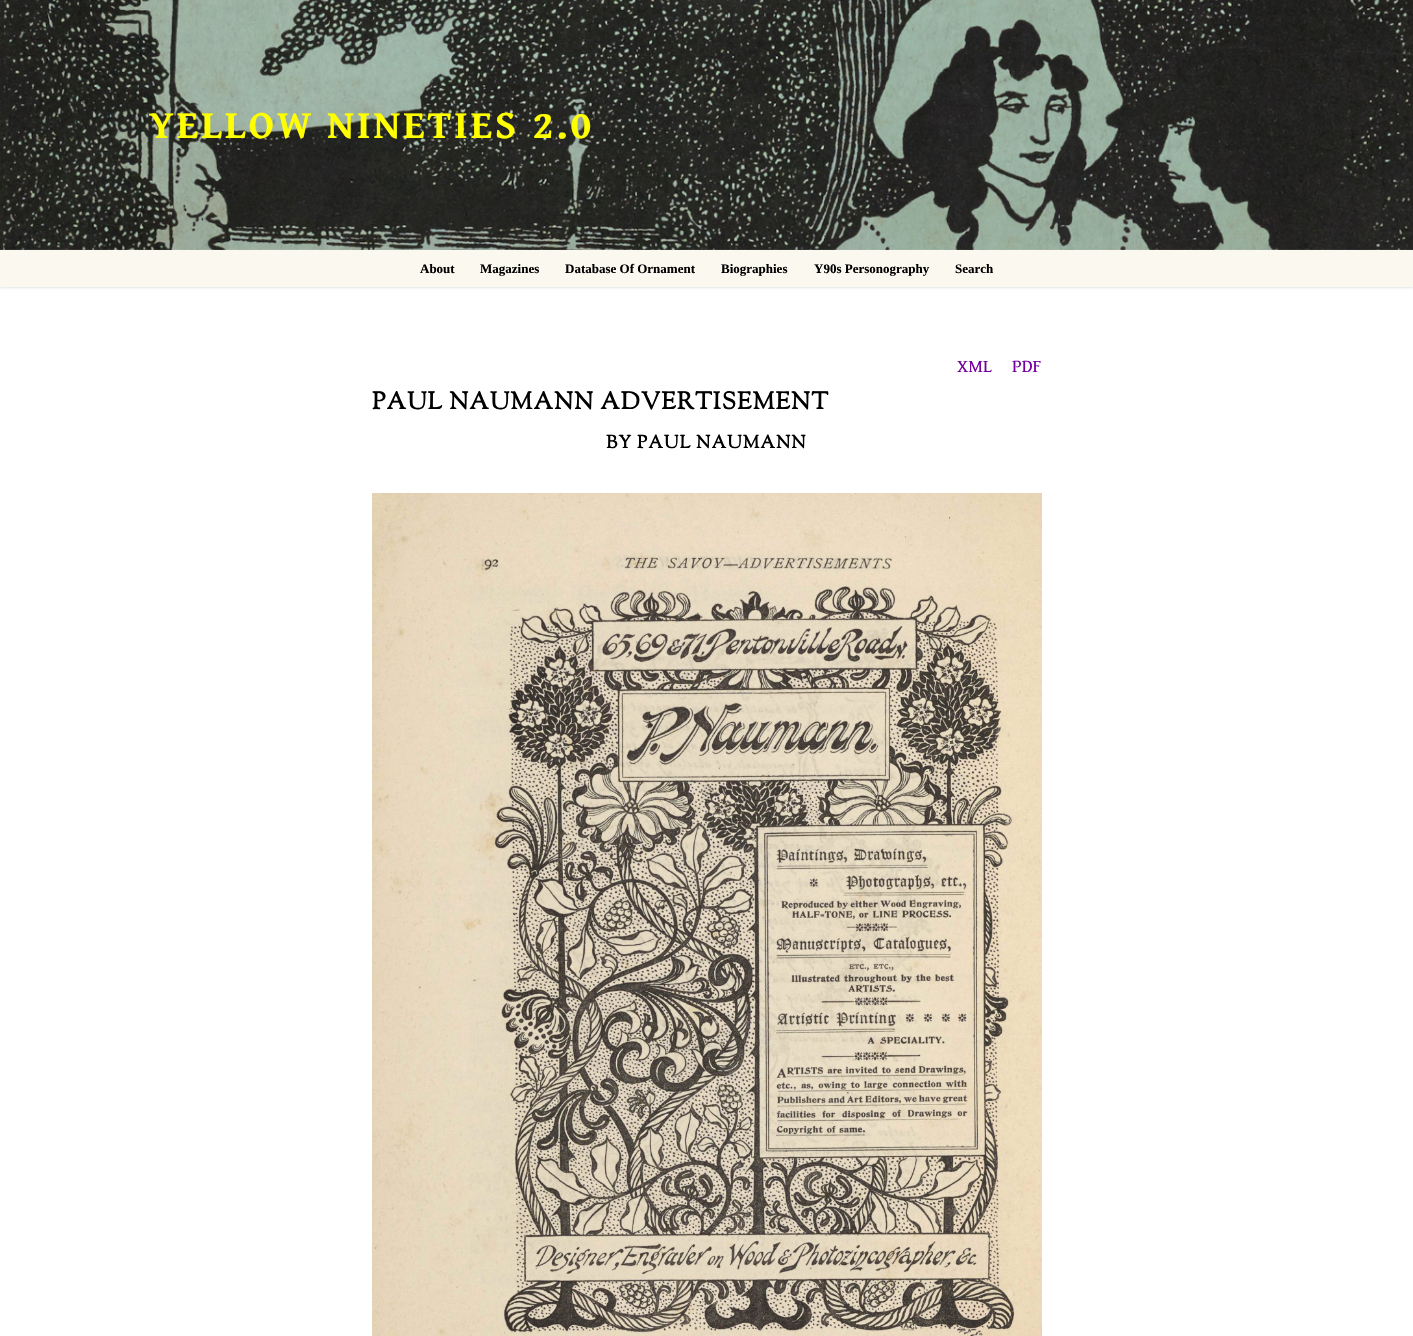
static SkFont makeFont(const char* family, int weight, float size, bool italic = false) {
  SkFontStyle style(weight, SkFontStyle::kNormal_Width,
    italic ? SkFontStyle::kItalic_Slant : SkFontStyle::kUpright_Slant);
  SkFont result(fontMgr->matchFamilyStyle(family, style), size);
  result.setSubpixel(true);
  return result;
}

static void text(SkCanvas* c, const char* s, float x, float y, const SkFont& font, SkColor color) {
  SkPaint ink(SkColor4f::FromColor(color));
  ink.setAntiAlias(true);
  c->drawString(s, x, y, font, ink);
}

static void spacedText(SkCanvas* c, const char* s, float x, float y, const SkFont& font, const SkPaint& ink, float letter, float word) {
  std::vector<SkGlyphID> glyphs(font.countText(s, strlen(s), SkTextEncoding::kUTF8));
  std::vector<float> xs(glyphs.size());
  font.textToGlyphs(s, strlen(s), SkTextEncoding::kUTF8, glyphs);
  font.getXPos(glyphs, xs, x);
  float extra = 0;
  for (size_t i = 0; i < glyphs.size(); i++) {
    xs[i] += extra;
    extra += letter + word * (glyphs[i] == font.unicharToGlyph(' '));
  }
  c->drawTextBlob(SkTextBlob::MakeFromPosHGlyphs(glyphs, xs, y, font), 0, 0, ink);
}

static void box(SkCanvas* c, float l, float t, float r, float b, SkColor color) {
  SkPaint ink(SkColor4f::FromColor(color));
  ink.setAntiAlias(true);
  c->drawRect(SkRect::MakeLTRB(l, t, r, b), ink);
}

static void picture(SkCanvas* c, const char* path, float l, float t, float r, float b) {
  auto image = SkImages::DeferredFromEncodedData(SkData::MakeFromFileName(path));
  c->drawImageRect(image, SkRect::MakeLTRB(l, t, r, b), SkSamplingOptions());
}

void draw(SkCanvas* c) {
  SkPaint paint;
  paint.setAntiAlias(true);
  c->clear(0xffffffff);
  picture(c, "img_01.png", 0, 0, 1413, 250);
  SkFont face1 = makeFont("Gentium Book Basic", 700, 40);
  paint.setColor(0xffffff00);
  spacedText(c, "YELLOW NINETIES 2.0", 149, 138, face1, paint, 3, 0);
  paint.setColor(0xffe1e5ea);
  paint.setMaskFilter(SkMaskFilter::MakeBlur(kNormal_SkBlurStyle, 1));
  c->drawRect(SkRect::MakeLTRB(0, 251, 1413, 288), paint);
  paint.setMaskFilter(nullptr);
  box(c, 0, 250, 1413, 287, 0xfffbf8ef);
  SkFont face2 = makeFont("Liberation Serif", 700, 13);
  text(c, "About", 420, 273, face2, 0xff000000);
  text(c, "Magazines", 480, 273, face2, 0xff000000);
  text(c, "Database Of Ornament", 565, 273, face2, 0xff000000);
  text(c, "Biographies", 721, 273, face2, 0xff000000);
  text(c, "Y90s Personography", 814, 273, face2, 0xff000000);
  text(c, "Search", 955, 273, face2, 0xff000000);
  SkFont face3 = makeFont("Gentium Book Basic", 400, 18);
  text(c, "XML", 957, 372, face3, 0xff73009e);
  text(c, "PDF", 1012, 372, face3, 0xff73009e);
  SkFont face4 = makeFont("Sorts Mill Goudy", 700, 24);
  paint.setColor(0xff000000);
  spacedText(c, "PAUL NAUMANN ADVERTISEMENT", 372, 409, face4, paint, 1, 0);
  SkFont face5 = makeFont("Sorts Mill Goudy", 700, 18);
  spacedText(c, "BY PAUL NAUMANN", 606, 448, face5, paint, 1, 0);
  picture(c, "img_02.png", 372, 493, 1042, 1336);
}
